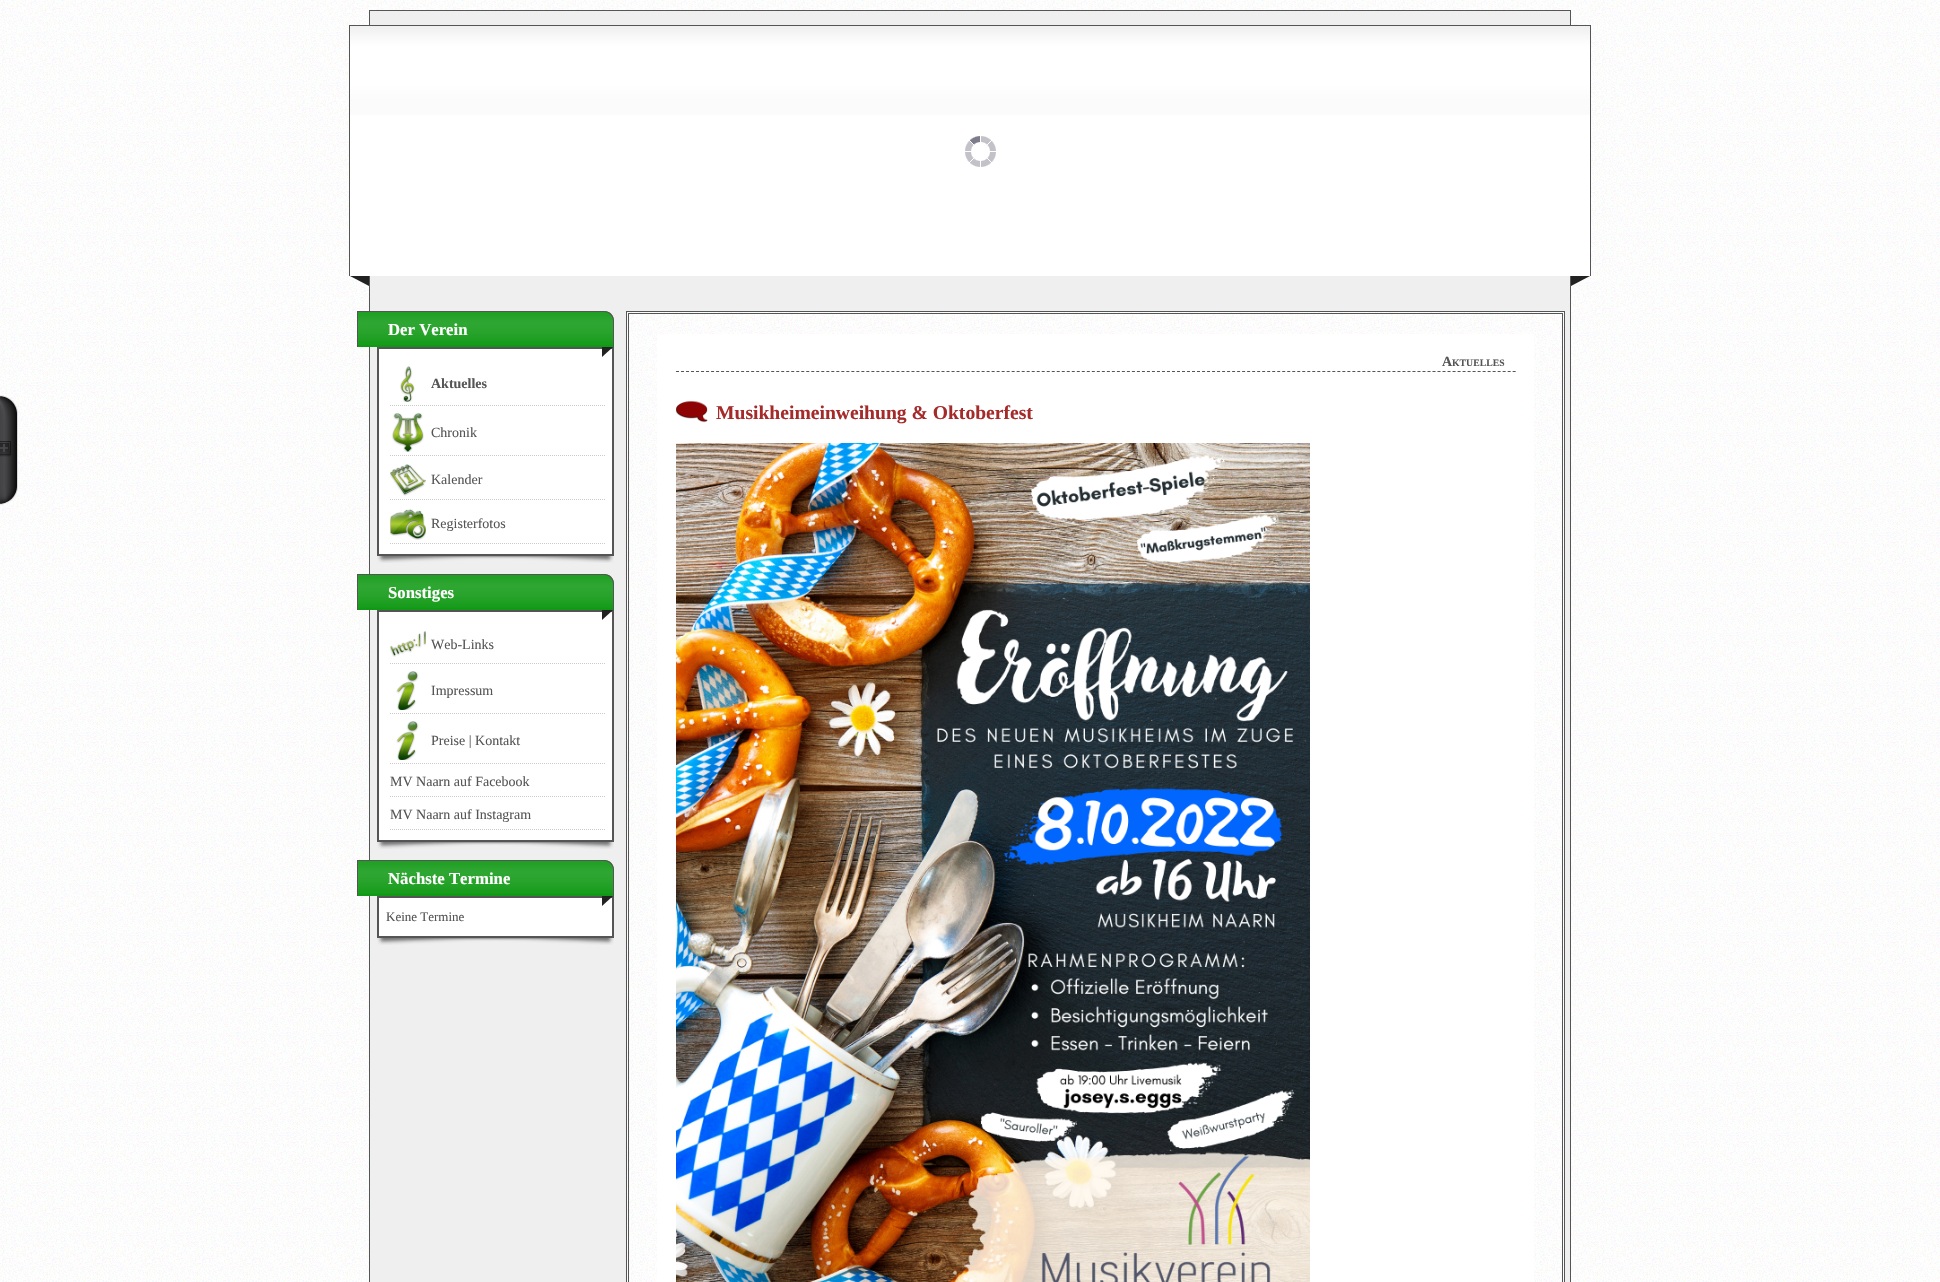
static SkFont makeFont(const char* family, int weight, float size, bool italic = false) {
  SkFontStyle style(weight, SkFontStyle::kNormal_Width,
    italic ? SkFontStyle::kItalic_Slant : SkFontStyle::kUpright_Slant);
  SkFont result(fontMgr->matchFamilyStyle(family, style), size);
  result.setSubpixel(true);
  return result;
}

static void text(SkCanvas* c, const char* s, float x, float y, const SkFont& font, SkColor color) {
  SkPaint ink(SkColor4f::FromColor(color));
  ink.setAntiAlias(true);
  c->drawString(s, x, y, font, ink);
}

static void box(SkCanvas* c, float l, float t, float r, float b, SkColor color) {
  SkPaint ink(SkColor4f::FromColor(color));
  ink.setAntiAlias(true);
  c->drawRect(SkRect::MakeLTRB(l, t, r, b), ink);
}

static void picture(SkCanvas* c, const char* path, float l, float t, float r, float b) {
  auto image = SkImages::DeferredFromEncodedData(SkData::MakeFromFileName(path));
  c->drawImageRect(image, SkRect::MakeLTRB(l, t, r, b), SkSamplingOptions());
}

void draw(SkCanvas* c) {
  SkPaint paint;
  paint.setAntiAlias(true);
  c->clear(0xffffffff);
  picture(c, "img_01.png", 0, 0, 1940, 1282);
  picture(c, "img_02.png", 0, 395, 18, 505);
  paint.setColor(0xffefefef);
  c->drawRect(SkRect::MakeLTRB(369.5f, 10.5f, 1570.5f, 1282.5f), paint);
  paint.setStyle(SkPaint::kStroke_Style);
  paint.setStrokeWidth(1);
  paint.setColor(0xff555555);
  c->drawRect(SkRect::MakeLTRB(369.5f, 10.5f, 1570.5f, 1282.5f), paint);
  box(c, 350, 26, 1590, 276, 0xffffffff);
  picture(c, "img_03.png", 350, 26, 1590, 115);
  box(c, 349, 25, 1591, 26, 0xff555555);
  box(c, 1590, 25, 1591, 276, 0xff555555);
  box(c, 349, 25, 350, 276, 0xff555555);
  picture(c, "img_04.png", 965, 136, 996, 167);
  paint.setStyle(SkPaint::kFill_Style);
  paint.setColor(0xff222222);
  c->drawPath(SkPathBuilder().moveTo(350, 276).lineTo(369, 276).lineTo(369, 286).close().detach(), paint);
  c->drawPath(SkPathBuilder().moveTo(1571, 276).lineTo(1590, 276).lineTo(1571, 286).close().detach(), paint);
  paint.setColor(0xff109914);
  c->drawPath(SkPathBuilder().moveTo(357, 311).lineTo(604, 311).cubicTo(609.5f, 311, 614, 315.5f, 614, 321).lineTo(614, 347).lineTo(357, 347).close().detach(), paint);
  picture(c, "img_05.png", 358, 312, 614, 345);
  paint.setColor(0xff555555);
  c->drawPath(SkPathBuilder(SkPathFillType::kEvenOdd).moveTo(357, 311).lineTo(604, 311).cubicTo(610, 311, 614, 315, 614, 321).lineTo(614, 347).lineTo(357, 347).close().moveTo(358, 312).lineTo(604, 312).cubicTo(609, 312, 613, 316, 613, 321).lineTo(613, 347).lineTo(358, 347).close().detach(), paint);
  SkFont face1 = makeFont("Liberation Serif", 700, 16.75f);
  text(c, "Der Verein", 388, 335, face1, 0xffffffff);
  paint.setStyle(SkPaint::kStroke_Style);
  c->drawRect(SkRect::MakeLTRB(377.5f, 347.5f, 613.5f, 555.5f), paint);
  paint.setStyle(SkPaint::kFill_Style);
  paint.setColor(0xffffffff);
  c->drawRect(SkRect::MakeLTRB(378.5f, 348.5f, 612.5f, 554.5f), paint);
  paint.setStyle(SkPaint::kStroke_Style);
  paint.setColor(0xff555555);
  c->drawRect(SkRect::MakeLTRB(378.5f, 348.5f, 612.5f, 554.5f), paint);
  paint.setStyle(SkPaint::kFill_Style);
  paint.setColor(0xff222222);
  c->drawPath(SkPathBuilder().moveTo(602, 347).lineTo(613, 347).lineTo(602, 357).close().detach(), paint);
  paint.setStyle(SkPaint::kStroke_Style);
  paint.setColor(0xffcccccc);
  paint.setPathEffect(SkDashPathEffect::Make({{1, 1}}, 0));
  c->drawPath(SkPathBuilder().moveTo(390, 405.5f).lineTo(605, 405.5f).detach(), paint);
  paint.setPathEffect(nullptr);
  picture(c, "img_06.png", 400, 366, 415, 402);
  SkFont face2 = makeFont("Liberation Serif", 700, 14);
  text(c, "Aktuelles", 431, 388, face2, 0xff555555);
  paint.setPathEffect(SkDashPathEffect::Make({{1, 1}}, 0));
  c->drawPath(SkPathBuilder().moveTo(390, 455.5f).lineTo(605, 455.5f).detach(), paint);
  paint.setPathEffect(nullptr);
  picture(c, "img_07.png", 391, 413, 424, 452);
  SkFont face3 = makeFont("Liberation Serif", 400, 14);
  text(c, "Chronik", 431, 437, face3, 0xff555555);
  paint.setPathEffect(SkDashPathEffect::Make({{1, 1}}, 0));
  c->drawPath(SkPathBuilder().moveTo(390, 499.5f).lineTo(605, 499.5f).detach(), paint);
  paint.setPathEffect(nullptr);
  picture(c, "img_08.png", 390, 464, 426, 496);
  text(c, "Kalender", 431, 484, face3, 0xff555555);
  paint.setPathEffect(SkDashPathEffect::Make({{1, 1}}, 0));
  c->drawPath(SkPathBuilder().moveTo(390, 543.5f).lineTo(605, 543.5f).detach(), paint);
  paint.setPathEffect(nullptr);
  picture(c, "img_09.png", 390, 509, 426, 540);
  text(c, "Registerfotos", 431, 528, face3, 0xff555555);
  picture(c, "img_10.png", 377, 556, 590, 563);
  picture(c, "img_11.png", 410, 556, 614, 563);
  paint.setStyle(SkPaint::kFill_Style);
  paint.setColor(0xff109914);
  c->drawPath(SkPathBuilder().moveTo(357, 574).lineTo(604, 574).cubicTo(609.5f, 574, 614, 578.5f, 614, 584).lineTo(614, 610).lineTo(357, 610).close().detach(), paint);
  picture(c, "img_05.png", 358, 575, 614, 608);
  paint.setColor(0xff555555);
  c->drawPath(SkPathBuilder(SkPathFillType::kEvenOdd).moveTo(357, 574).lineTo(604, 574).cubicTo(610, 574, 614, 578, 614, 584).lineTo(614, 610).lineTo(357, 610).close().moveTo(358, 575).lineTo(604, 575).cubicTo(609, 575, 613, 579, 613, 584).lineTo(613, 610).lineTo(358, 610).close().detach(), paint);
  text(c, "Sonstiges", 388, 598, face1, 0xffffffff);
  paint.setStyle(SkPaint::kStroke_Style);
  c->drawRect(SkRect::MakeLTRB(377.5f, 610.5f, 613.5f, 841.5f), paint);
  paint.setStyle(SkPaint::kFill_Style);
  paint.setColor(0xffffffff);
  c->drawRect(SkRect::MakeLTRB(378.5f, 611.5f, 612.5f, 840.5f), paint);
  paint.setStyle(SkPaint::kStroke_Style);
  paint.setColor(0xff555555);
  c->drawRect(SkRect::MakeLTRB(378.5f, 611.5f, 612.5f, 840.5f), paint);
  paint.setStyle(SkPaint::kFill_Style);
  paint.setColor(0xff222222);
  c->drawPath(SkPathBuilder().moveTo(602, 610).lineTo(613, 610).lineTo(602, 620).close().detach(), paint);
  paint.setStyle(SkPaint::kStroke_Style);
  paint.setColor(0xffcccccc);
  paint.setPathEffect(SkDashPathEffect::Make({{1, 1}}, 0));
  c->drawPath(SkPathBuilder().moveTo(390, 663.5f).lineTo(605, 663.5f).detach(), paint);
  paint.setPathEffect(nullptr);
  picture(c, "img_12.png", 390, 631, 426, 657);
  text(c, "Web-Links", 431, 649, face3, 0xff555555);
  paint.setPathEffect(SkDashPathEffect::Make({{1, 1}}, 0));
  c->drawPath(SkPathBuilder().moveTo(390, 713.5f).lineTo(605, 713.5f).detach(), paint);
  paint.setPathEffect(nullptr);
  picture(c, "img_13.png", 396, 671, 419, 710);
  text(c, "Impressum", 431, 695, face3, 0xff555555);
  paint.setPathEffect(SkDashPathEffect::Make({{1, 1}}, 0));
  c->drawPath(SkPathBuilder().moveTo(390, 763.5f).lineTo(605, 763.5f).detach(), paint);
  paint.setPathEffect(nullptr);
  picture(c, "img_13.png", 396, 721, 419, 760);
  text(c, "Preise | Kontakt", 431, 745, face3, 0xff555555);
  paint.setPathEffect(SkDashPathEffect::Make({{1, 1}}, 0));
  c->drawPath(SkPathBuilder().moveTo(390, 796.5f).lineTo(605, 796.5f).detach(), paint);
  paint.setPathEffect(nullptr);
  text(c, "MV Naarn auf Facebook", 390, 786, face3, 0xff555555);
  paint.setPathEffect(SkDashPathEffect::Make({{1, 1}}, 0));
  c->drawPath(SkPathBuilder().moveTo(390, 829.5f).lineTo(605, 829.5f).detach(), paint);
  paint.setPathEffect(nullptr);
  text(c, "MV Naarn auf Instagram", 390, 819, face3, 0xff555555);
  picture(c, "img_10.png", 377, 842, 590, 849);
  picture(c, "img_11.png", 410, 842, 614, 849);
  paint.setStyle(SkPaint::kFill_Style);
  paint.setColor(0xff109914);
  c->drawPath(SkPathBuilder().moveTo(357, 860).lineTo(604, 860).cubicTo(609.5f, 860, 614, 864.5f, 614, 870).lineTo(614, 896).lineTo(357, 896).close().detach(), paint);
  picture(c, "img_05.png", 358, 861, 614, 894);
  paint.setColor(0xff555555);
  c->drawPath(SkPathBuilder(SkPathFillType::kEvenOdd).moveTo(357, 860).lineTo(604, 860).cubicTo(610, 860, 614, 864, 614, 870).lineTo(614, 896).lineTo(357, 896).close().moveTo(358, 861).lineTo(604, 861).cubicTo(609, 861, 613, 865, 613, 870).lineTo(613, 896).lineTo(358, 896).close().detach(), paint);
  text(c, "Nächste Termine", 388, 884, face1, 0xffffffff);
  paint.setStyle(SkPaint::kStroke_Style);
  c->drawRect(SkRect::MakeLTRB(377.5f, 896.5f, 613.5f, 937.5f), paint);
  paint.setStyle(SkPaint::kFill_Style);
  paint.setColor(0xffffffff);
  c->drawRect(SkRect::MakeLTRB(378.5f, 897.5f, 612.5f, 936.5f), paint);
  paint.setStyle(SkPaint::kStroke_Style);
  paint.setColor(0xff555555);
  c->drawRect(SkRect::MakeLTRB(378.5f, 897.5f, 612.5f, 936.5f), paint);
  paint.setStyle(SkPaint::kFill_Style);
  paint.setColor(0xff222222);
  c->drawPath(SkPathBuilder().moveTo(602, 896).lineTo(613, 896).lineTo(602, 906).close().detach(), paint);
  SkFont face4 = makeFont("Liberation Serif", 400, 13);
  text(c, "Keine Termine", 386, 921, face4, 0xff555555);
  picture(c, "img_10.png", 377, 938, 590, 945);
  picture(c, "img_11.png", 410, 938, 614, 945);
  box(c, 627, 312, 1564, 1282, 0xffffffff);
  picture(c, "img_14.png", 627, 312, 1564, 1282);
  paint.setStyle(SkPaint::kStroke_Style);
  paint.setColor(0xff555555);
  c->drawRect(SkRect::MakeLTRB(626.5f, 311.5f, 1564.5f, 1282.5f), paint);
  c->drawRect(SkRect::MakeLTRB(628.5f, 313.5f, 1562.5f, 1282.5f), paint);
  box(c, 657, 334, 1534, 1282, 0xffffffff);
  paint.setPathEffect(SkDashPathEffect::Make({{3, 2.01f}}, 0));
  c->drawPath(SkPathBuilder().moveTo(676, 371.5f).lineTo(1516, 371.5f).detach(), paint);
  paint.setPathEffect(nullptr);
  text(c, "A", 1442, 366, face2, 0xff555555);
  SkFont face5 = makeFont("Liberation Serif", 700, 9.75f);
  text(c, "KTUELLES", 1452, 366, face5, 0xff555555);
  picture(c, "img_15.png", 676, 400, 708, 423);
  SkFont face6 = makeFont("Liberation Serif", 700, 19.6f);
  text(c, "Musikheimeinweihung & Oktoberfest", 716, 419, face6, 0xffa52a2a);
  picture(c, "img_16.png", 676, 443, 1310, 1282);
}
